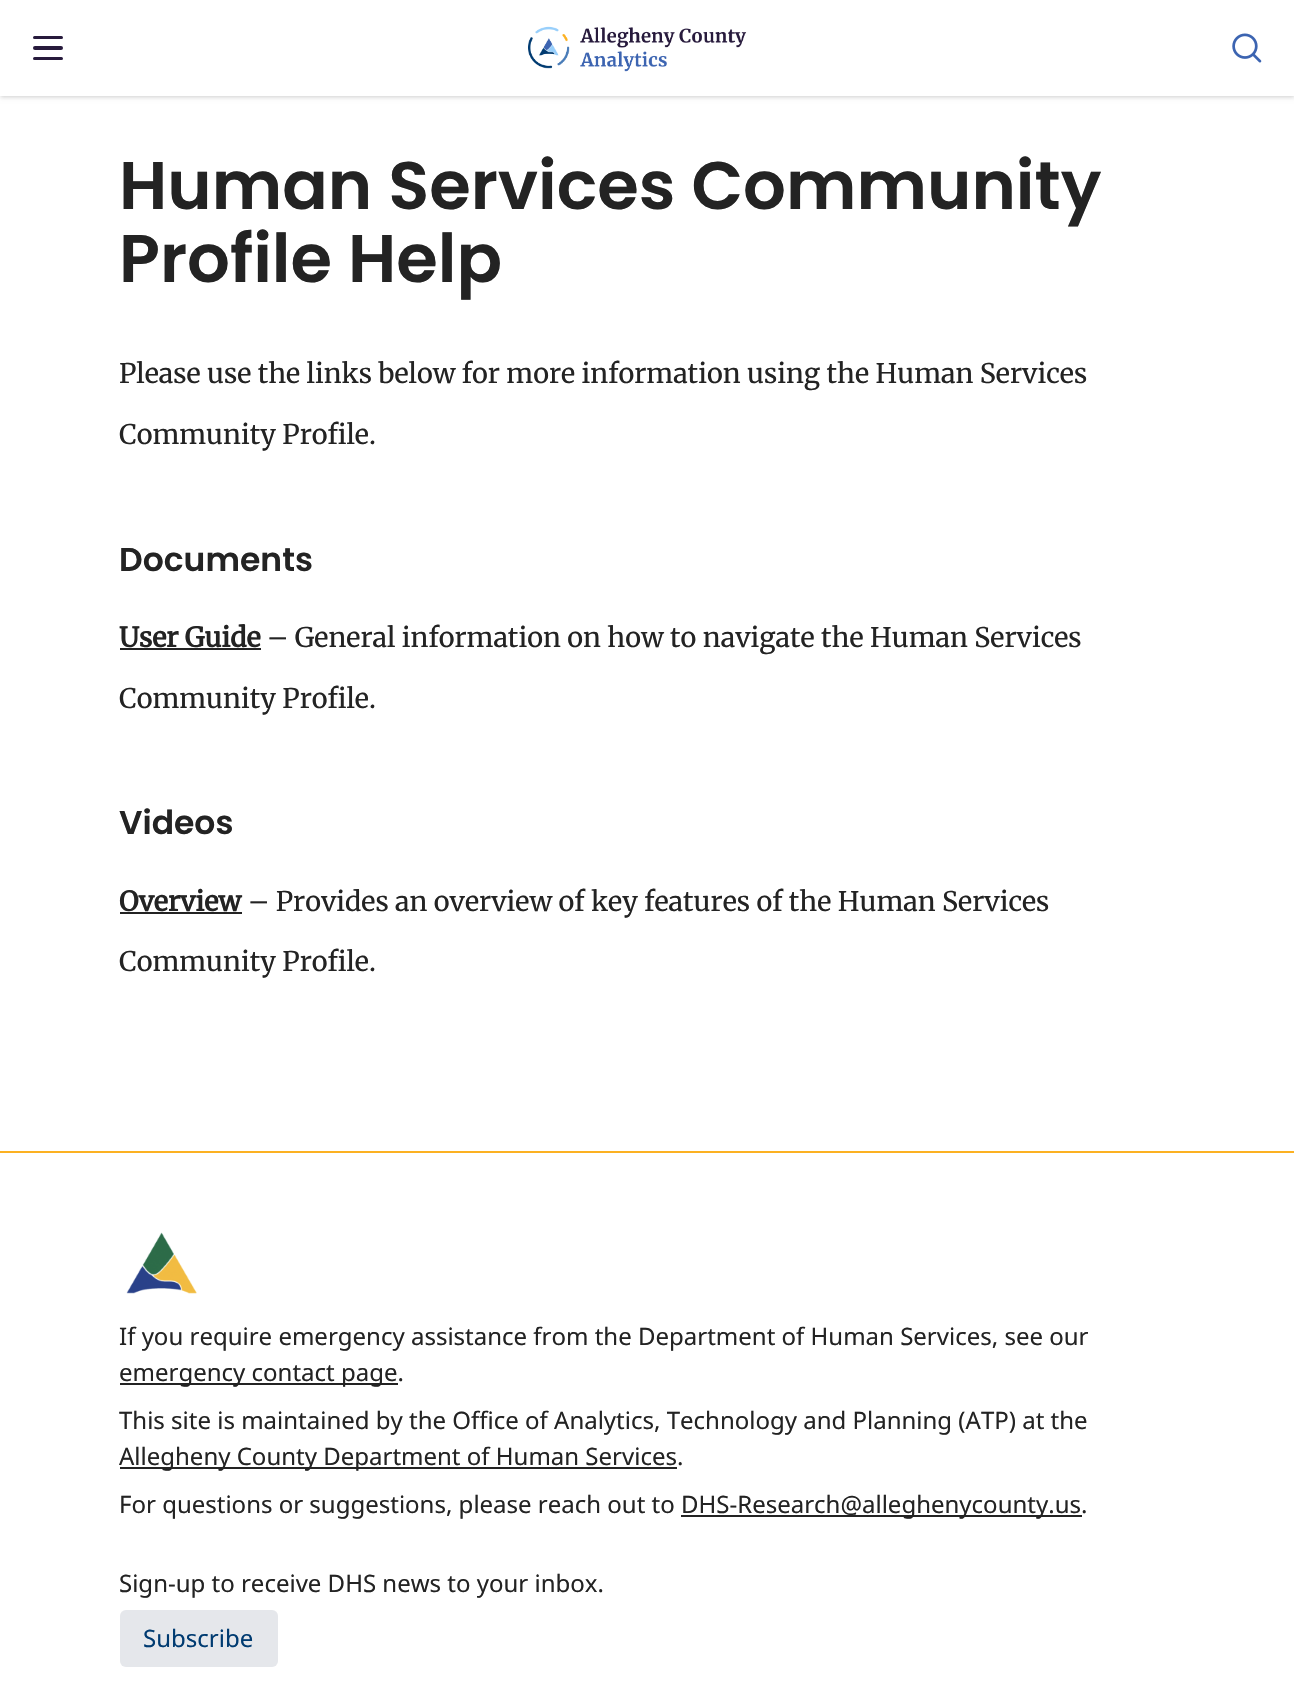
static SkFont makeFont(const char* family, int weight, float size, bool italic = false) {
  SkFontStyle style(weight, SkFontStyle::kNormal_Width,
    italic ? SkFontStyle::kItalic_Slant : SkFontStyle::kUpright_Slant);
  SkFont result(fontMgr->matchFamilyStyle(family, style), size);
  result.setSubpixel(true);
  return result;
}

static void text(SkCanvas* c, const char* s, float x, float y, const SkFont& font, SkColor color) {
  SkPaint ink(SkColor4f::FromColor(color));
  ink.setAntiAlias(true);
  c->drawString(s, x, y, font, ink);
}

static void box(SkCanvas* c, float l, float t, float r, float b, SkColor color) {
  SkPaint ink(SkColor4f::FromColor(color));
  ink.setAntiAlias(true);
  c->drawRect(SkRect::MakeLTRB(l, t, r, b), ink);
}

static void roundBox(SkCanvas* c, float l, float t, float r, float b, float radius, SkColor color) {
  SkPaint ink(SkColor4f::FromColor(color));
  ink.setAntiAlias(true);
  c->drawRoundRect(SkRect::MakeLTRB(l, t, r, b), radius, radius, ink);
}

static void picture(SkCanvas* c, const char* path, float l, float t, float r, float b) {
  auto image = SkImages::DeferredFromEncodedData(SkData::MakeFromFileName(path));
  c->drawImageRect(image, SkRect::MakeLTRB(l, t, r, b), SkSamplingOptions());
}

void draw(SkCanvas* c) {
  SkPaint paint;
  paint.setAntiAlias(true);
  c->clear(0xffffffff);
  paint.setColor(0x1a000000);
  paint.setMaskFilter(SkMaskFilter::MakeBlur(kNormal_SkBlurStyle, 1.5f));
  c->drawRect(SkRect::MakeLTRB(2, 3, 1293, 96), paint);
  paint.setMaskFilter(nullptr);
  paint.setMaskFilter(SkMaskFilter::MakeBlur(kNormal_SkBlurStyle, 2));
  c->drawRect(SkRect::MakeLTRB(0, 2, 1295, 98), paint);
  paint.setMaskFilter(nullptr);
  box(c, 0, 0, 1294, 96, 0xffffffff);
  roundBox(c, 33, 57, 63, 60, 1.5f, 0xff271a3c);
  roundBox(c, 33, 46, 63, 50, 2, 0xff271a3c);
  roundBox(c, 33, 36, 63, 39, 1.5f, 0xff271a3c);
  picture(c, "img_01.png", 528, 26, 747, 72);
  picture(c, "img_02.png", 1232, 33, 1262, 63);
  SkFont face1 = makeFont("Poppins", 600, 67.25f);
  text(c, "Human Services Community", 119, 209, face1, 0xff232323);
  text(c, "Profile Help", 119, 282, face1, 0xff232323);
  SkFont face2 = makeFont("Merriweather", 300, 27);
  text(c, "Please use the links below for more information using the Human Services", 119, 383, face2, 0xff232323);
  text(c, "Community Profile.", 119, 444, face2, 0xff232323);
  SkFont face3 = makeFont("Poppins", 600, 33);
  text(c, "Documents", 119, 571, face3, 0xff232323);
  SkFont face4 = makeFont("Merriweather", 700, 27);
  text(c, "User Guide", 119, 647, face4, 0xff232323);
  box(c, 120, 648, 261, 650, 0xff232323);
  text(c, "– General information on how to navigate the Human Services", 267, 647, face2, 0xff232323);
  text(c, "Community Profile.", 119, 708, face2, 0xff232323);
  text(c, "Videos", 119, 834, face3, 0xff232323);
  text(c, "Overview", 119, 911, face4, 0xff232323);
  box(c, 120, 912, 242, 914, 0xff232323);
  text(c, "– Provides an overview of key features of the Human Services", 248, 911, face2, 0xff232323);
  text(c, "Community Profile.", 119, 971, face2, 0xff232323);
  box(c, 0, 1151, 1294, 1153, 0xfffcb122);
  picture(c, "img_03.png", 126, 1232, 197, 1294);
  SkFont face5 = makeFont("Noto Sans", 400, 24);
  text(c, "If you require emergency assistance from the Department of Human Services, see our", 119, 1345, face5, 0xff232323);
  box(c, 120, 1383, 398, 1385, 0xff232323);
  text(c, "emergency contact page.", 119, 1381, face5, 0xff232323);
  text(c, "This site is maintained by the Office of Analytics, Technology and Planning (ATP) at the", 119, 1429, face5, 0xff232323);
  box(c, 120, 1467, 677, 1469, 0xff232323);
  text(c, "Allegheny County Department of Human Services.", 119, 1465, face5, 0xff232323);
  text(c, "For questions or suggestions, please reach out to", 119, 1513, face5, 0xff232323);
  box(c, 681, 1515, 1082, 1517, 0xff232323);
  text(c, "DHS-Research@alleghenycounty.us.", 681, 1513, face5, 0xff232323);
  text(c, "Sign-up to receive DHS news to your inbox.", 119, 1592, face5, 0xff232323);
  roundBox(c, 120, 1610, 278, 1667, 6, 0xffe5e7eb);
  text(c, "Subscribe", 143, 1647, face5, 0xff003b71);
}
